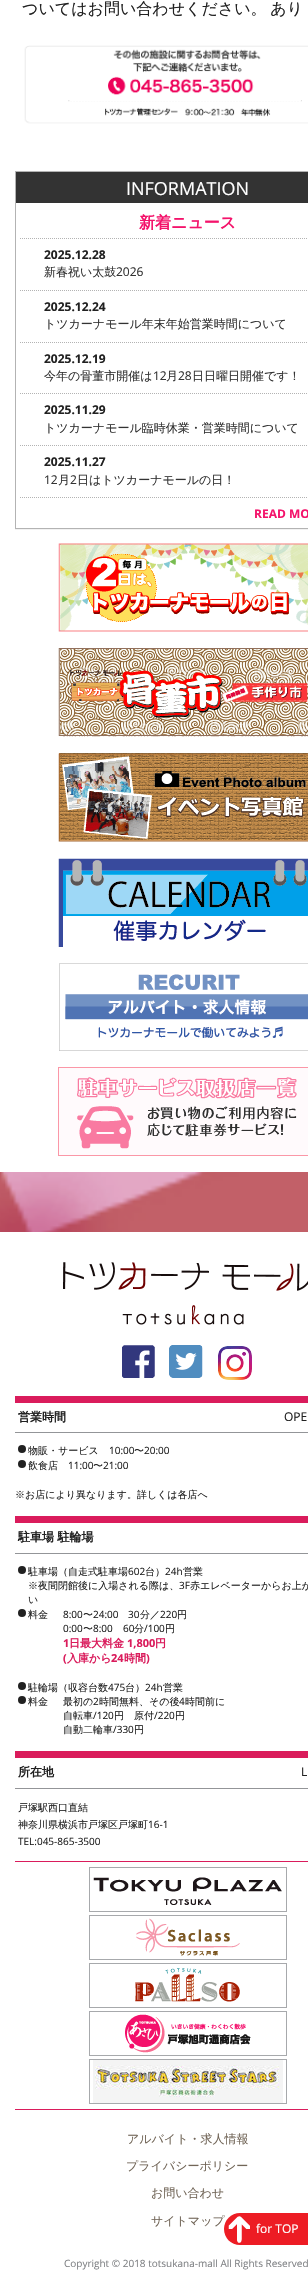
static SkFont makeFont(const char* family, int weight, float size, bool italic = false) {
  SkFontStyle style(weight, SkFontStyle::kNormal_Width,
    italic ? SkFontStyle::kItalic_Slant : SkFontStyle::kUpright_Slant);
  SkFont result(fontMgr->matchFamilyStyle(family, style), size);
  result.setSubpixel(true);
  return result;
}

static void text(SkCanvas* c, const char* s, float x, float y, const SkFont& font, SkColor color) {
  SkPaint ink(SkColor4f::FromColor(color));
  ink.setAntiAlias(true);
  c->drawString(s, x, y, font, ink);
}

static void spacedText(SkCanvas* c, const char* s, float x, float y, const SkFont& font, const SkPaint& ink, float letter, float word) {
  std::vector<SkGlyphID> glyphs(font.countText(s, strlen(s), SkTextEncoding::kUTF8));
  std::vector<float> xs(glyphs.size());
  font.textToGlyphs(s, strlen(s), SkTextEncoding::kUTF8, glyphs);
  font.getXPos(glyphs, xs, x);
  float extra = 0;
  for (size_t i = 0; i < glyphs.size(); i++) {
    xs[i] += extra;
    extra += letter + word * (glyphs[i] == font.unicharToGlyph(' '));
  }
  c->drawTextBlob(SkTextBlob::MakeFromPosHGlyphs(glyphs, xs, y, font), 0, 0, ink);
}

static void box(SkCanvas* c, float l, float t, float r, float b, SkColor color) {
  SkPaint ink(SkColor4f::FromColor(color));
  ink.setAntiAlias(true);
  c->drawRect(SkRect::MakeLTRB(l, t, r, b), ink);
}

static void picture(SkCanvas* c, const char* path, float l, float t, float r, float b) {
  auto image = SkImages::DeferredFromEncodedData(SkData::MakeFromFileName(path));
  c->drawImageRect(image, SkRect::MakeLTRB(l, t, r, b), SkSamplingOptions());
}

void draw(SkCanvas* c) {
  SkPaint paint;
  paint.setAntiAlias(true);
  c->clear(0xffffffff);
  picture(c, "img_01.png", 0, 1172, 308, 1232);
  SkFont face1 = makeFont("WenQuanYi Zen Hei", 500, 16);
  paint.setColor(0xff212121);
  spacedText(c, "ついてはお問い合わせください。 あり", 22, 14, face1, paint, 0, -1);
  picture(c, "img_02.png", 24, 45, 308, 124);
  c->save();
  c->clipRect(SkRect::MakeLTRB(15, 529, 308, 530));
  paint.setColor(0x0d000000);
  paint.setMaskFilter(SkMaskFilter::MakeBlur(kNormal_SkBlurStyle, 0.5f));
  c->drawRect(SkRect::MakeLTRB(15, 172, 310, 530), paint);
  paint.setMaskFilter(nullptr);
  c->restore();
  paint.setStyle(SkPaint::kStroke_Style);
  paint.setStrokeWidth(1);
  paint.setColor(0xffb3b3b3);
  c->drawRect(SkRect::MakeLTRB(15.5f, 171.5f, 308.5f, 528.5f), paint);
  box(c, 16, 172, 308, 203, 0xff333333);
  SkFont face2 = makeFont("Open Sans", 400, 18);
  text(c, "INFORMATION", 126, 195, face2, 0xffffffff);
  SkFont face3 = makeFont("WenQuanYi Zen Hei", 700, 16);
  text(c, "新着ニュース", 139, 228, face3, 0xfff4136b);
  paint.setPathEffect(SkDashPathEffect::Make({{1, 1}}, 0));
  c->drawPath(SkPathBuilder().moveTo(20, 238.5f).lineTo(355, 238.5f).detach(), paint);
  paint.setPathEffect(nullptr);
  SkFont face4 = makeFont("Open Sans", 700, 12);
  text(c, "2025.12.28", 44, 259, face4, 0xff212121);
  SkFont face5 = makeFont("WenQuanYi Zen Hei", 500, 12);
  text(c, "新春祝い太鼓", 44, 276, face5, 0xff333333);
  SkFont face6 = makeFont("Open Sans", 400, 12);
  text(c, "2026", 116, 276, face6, 0xff333333);
  paint.setPathEffect(SkDashPathEffect::Make({{1, 1}}, 0));
  c->drawPath(SkPathBuilder().moveTo(20, 290.5f).lineTo(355, 290.5f).detach(), paint);
  paint.setPathEffect(nullptr);
  text(c, "2025.12.24", 44, 311, face4, 0xff212121);
  text(c, "トツカーナモール年末年始営業時間について", 44, 328, face5, 0xff333333);
  paint.setPathEffect(SkDashPathEffect::Make({{1, 1}}, 0));
  c->drawPath(SkPathBuilder().moveTo(20, 342.5f).lineTo(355, 342.5f).detach(), paint);
  paint.setPathEffect(nullptr);
  text(c, "2025.12.19", 44, 363, face4, 0xff212121);
  text(c, "今年の骨董市開催は", 44, 380, face5, 0xff333333);
  text(c, "12", 153, 380, face6, 0xff333333);
  text(c, "月", 166, 380, face5, 0xff333333);
  text(c, "28", 178, 380, face6, 0xff333333);
  text(c, "日日曜日開催です！", 192, 380, face5, 0xff333333);
  paint.setPathEffect(SkDashPathEffect::Make({{1, 1}}, 0));
  c->drawPath(SkPathBuilder().moveTo(20, 393.5f).lineTo(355, 393.5f).detach(), paint);
  paint.setPathEffect(nullptr);
  text(c, "2025.11.29", 44, 414, face4, 0xff212121);
  text(c, "トツカーナモール臨時休業・営業時間について", 44, 432, face5, 0xff333333);
  paint.setPathEffect(SkDashPathEffect::Make({{1, 1}}, 0));
  c->drawPath(SkPathBuilder().moveTo(20, 445.5f).lineTo(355, 445.5f).detach(), paint);
  paint.setPathEffect(nullptr);
  paint.setPathEffect(SkDashPathEffect::Make({{1, 1}}, 0));
  c->drawPath(SkPathBuilder().moveTo(20, 497.5f).lineTo(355, 497.5f).detach(), paint);
  paint.setPathEffect(nullptr);
  text(c, "2025.11.27", 44, 466, face4, 0xff212121);
  text(c, "12", 44, 484, face6, 0xff333333);
  text(c, "月", 58, 484, face5, 0xff333333);
  text(c, "2", 70, 484, face6, 0xff333333);
  text(c, "日はトツカーナモールの日！", 77, 484, face5, 0xff333333);
  text(c, "READ MO", 254, 518, face4, 0xfff4136b);
  picture(c, "img_03.png", 58, 543, 308, 632);
  picture(c, "img_04.png", 58, 648, 308, 737);
  picture(c, "img_05.png", 58, 753, 308, 842);
  picture(c, "img_06.png", 58, 858, 308, 947);
  picture(c, "img_07.png", 59, 963, 308, 1051);
  picture(c, "img_08.png", 58, 1067, 308, 1156);
  picture(c, "img_09.png", 63, 1262, 308, 1325);
  picture(c, "img_10.png", 122, 1345, 155, 1378);
  picture(c, "img_11.png", 169, 1345, 203, 1378);
  picture(c, "img_12.png", 218, 1346, 252, 1380);
  box(c, 15, 1396, 308, 1403, 0xffda1c5c);
  box(c, 15, 1432, 308, 1433, 0xff939598);
  SkFont face7 = makeFont("WenQuanYi Zen Hei", 700, 12);
  text(c, "営業時間", 18, 1421, face7, 0xff212121);
  text(c, "OPE", 284, 1421, face6, 0xff212121);
  paint.setStyle(SkPaint::kFill_Style);
  paint.setColor(0xff212121);
  c->drawCircle(22, 1449, 4, paint);
  SkFont face8 = makeFont("WenQuanYi Zen Hei", 500, 10);
  text(c, "物販・サービス", 28, 1454, face8, 0xff212121);
  SkFont face9 = makeFont("Open Sans", 400, 10);
  text(c, "10:00", 109, 1454, face9, 0xff212121);
  text(c, "〜", 134, 1454, face8, 0xff212121);
  text(c, "20:00", 144, 1454, face9, 0xff212121);
  c->drawCircle(22, 1464, 4, paint);
  text(c, "飲食店", 28, 1469, face8, 0xff212121);
  text(c, "11:00", 68, 1469, face9, 0xff212121);
  text(c, "〜", 93, 1469, face8, 0xff212121);
  text(c, "21:00", 103, 1469, face9, 0xff212121);
  text(c, "※お店により異なります。詳しくは各店へ", 15, 1498, face8, 0xff212121);
  box(c, 15, 1516, 308, 1523, 0xffda1c5c);
  box(c, 15, 1553, 308, 1554, 0xff939598);
  text(c, "駐車場 駐輪場", 18, 1541, face7, 0xff212121);
  c->drawCircle(22, 1570, 4, paint);
  text(c, "駐車場（自走式駐車場", 28, 1575, face8, 0xff212121);
  text(c, "602", 128, 1575, face9, 0xff212121);
  text(c, "台）", 145, 1575, face8, 0xff212121);
  text(c, "24h", 165, 1575, face9, 0xff212121);
  text(c, "営業", 183, 1575, face8, 0xff212121);
  text(c, "※夜間閉館後に入場される際は、", 28, 1589, face8, 0xff212121);
  text(c, "3F", 179, 1589, face9, 0xff212121);
  text(c, "赤エレベーターからお上が", 190, 1589, face8, 0xff212121);
  text(c, "い", 28, 1603, face8, 0xff212121);
  c->drawCircle(22, 1613, 4, paint);
  text(c, "料金", 28, 1618, face8, 0xff212121);
  text(c, "8:00", 63, 1618, face9, 0xff212121);
  text(c, "〜", 83, 1618, face8, 0xff212121);
  text(c, "24:00", 93, 1618, face9, 0xff212121);
  text(c, "30", 128, 1618, face9, 0xff212121);
  text(c, "分／", 140, 1618, face8, 0xff212121);
  text(c, "220", 160, 1618, face9, 0xff212121);
  text(c, "円", 177, 1618, face8, 0xff212121);
  text(c, "0:00", 63, 1632, face9, 0xff212121);
  text(c, "〜", 83, 1632, face8, 0xff212121);
  text(c, "8:00", 93, 1632, face9, 0xff212121);
  text(c, "60", 123, 1632, face9, 0xff212121);
  text(c, "分", 134, 1632, face8, 0xff212121);
  text(c, "/100", 144, 1632, face9, 0xff212121);
  text(c, "円", 165, 1632, face8, 0xff212121);
  SkFont face10 = makeFont("Open Sans", 700, 11);
  text(c, "1", 63, 1647, face10, 0xffda1c5c);
  SkFont face11 = makeFont("WenQuanYi Zen Hei", 700, 11);
  text(c, "日最大料金", 69, 1647, face11, 0xffda1c5c);
  text(c, "1,800", 127, 1647, face10, 0xffda1c5c);
  text(c, "円", 155, 1647, face11, 0xffda1c5c);
  text(c, "(", 63, 1662, face10, 0xffda1c5c);
  text(c, "入庫から", 67, 1662, face11, 0xffda1c5c);
  text(c, "24", 111, 1662, face10, 0xffda1c5c);
  text(c, "時間", 124, 1662, face11, 0xffda1c5c);
  text(c, ")", 146, 1662, face10, 0xffda1c5c);
  c->drawCircle(22, 1686, 4, paint);
  text(c, "駐輪場（収容台数", 28, 1691, face8, 0xff212121);
  text(c, "475", 108, 1691, face9, 0xff212121);
  text(c, "台）", 125, 1691, face8, 0xff212121);
  text(c, "24h", 145, 1691, face9, 0xff212121);
  text(c, "営業", 163, 1691, face8, 0xff212121);
  c->drawCircle(22, 1700, 4, paint);
  text(c, "料金", 28, 1705, face8, 0xff212121);
  text(c, "最初の", 63, 1705, face8, 0xff212121);
  text(c, "2", 93, 1705, face9, 0xff212121);
  text(c, "時間無料、その後", 99, 1705, face8, 0xff212121);
  text(c, "4", 179, 1705, face9, 0xff212121);
  text(c, "時間前に", 185, 1705, face8, 0xff212121);
  text(c, "自転車", 63, 1719, face8, 0xff212121);
  text(c, "/120", 93, 1719, face9, 0xff212121);
  text(c, "円　原付", 114, 1719, face8, 0xff212121);
  text(c, "/220", 154, 1719, face9, 0xff212121);
  text(c, "円", 175, 1719, face8, 0xff212121);
  text(c, "自動二輪車", 63, 1733, face8, 0xff212121);
  text(c, "/330", 113, 1733, face9, 0xff212121);
  text(c, "円", 134, 1733, face8, 0xff212121);
  box(c, 15, 1751, 308, 1758, 0xffda1c5c);
  box(c, 15, 1788, 308, 1789, 0xff939598);
  text(c, "所在地", 18, 1776, face7, 0xff212121);
  text(c, "L", 301, 1776, face6, 0xff212121);
  text(c, "戸塚駅西口直結", 18, 1811, face8, 0xff212121);
  text(c, "神奈川県横浜市戸塚区戸塚町", 18, 1828, face8, 0xff212121);
  text(c, "16-1", 148, 1828, face9, 0xff212121);
  text(c, "TEL:045-865-3500", 18, 1845, face9, 0xff212121);
  box(c, 15, 1861, 308, 1862, 0xffda1c5c);
  box(c, 15, 2109, 308, 2110, 0xffda1c5c);
  paint.setStyle(SkPaint::kStroke_Style);
  paint.setColor(0xffa7a9ac);
  c->drawRect(SkRect::MakeLTRB(89.5f, 1867.5f, 286.5f, 1911.5f), paint);
  picture(c, "img_13.png", 93, 1877, 282, 1905);
  c->drawRect(SkRect::MakeLTRB(89.5f, 1915.5f, 286.5f, 1959.5f), paint);
  picture(c, "img_14.png", 136, 1918, 240, 1956);
  c->drawRect(SkRect::MakeLTRB(89.5f, 1963.5f, 286.5f, 2007.5f), paint);
  picture(c, "img_15.png", 135, 1968, 240, 2002);
  c->drawRect(SkRect::MakeLTRB(89.5f, 2011.5f, 286.5f, 2055.5f), paint);
  picture(c, "img_16.png", 125, 2014, 251, 2053);
  c->drawRect(SkRect::MakeLTRB(89.5f, 2059.5f, 286.5f, 2103.5f), paint);
  picture(c, "img_17.png", 93, 2060, 283, 2103);
  text(c, "アルバイト・求人情報", 127, 2143, face5, 0xff726658);
  text(c, "プライバシーポリシー", 126, 2170, face5, 0xff726658);
  text(c, "お問い合わせ", 151, 2197, face5, 0xff726658);
  text(c, "サイトマップ", 151, 2225, face5, 0xff726658);
  paint.setStyle(SkPaint::kFill_Style);
  paint.setColor(0xffed1c24);
  c->drawPath(SkPathBuilder().moveTo(240, 2213).lineTo(308, 2213).lineTo(308, 2245).lineTo(240, 2245).cubicTo(231, 2245, 224, 2238, 224, 2229).cubicTo(224, 2220, 231, 2213, 240, 2213).close().detach(), paint);
  picture(c, "img_18.png", 228, 2216, 250, 2243);
  text(c, "for TOP", 256, 2233, face6, 0xffffffff);
  text(c, "Copyright © 2018 totsukana-mall All Rights Reserved", 64, 2267, face9, 0xff808285);
}
